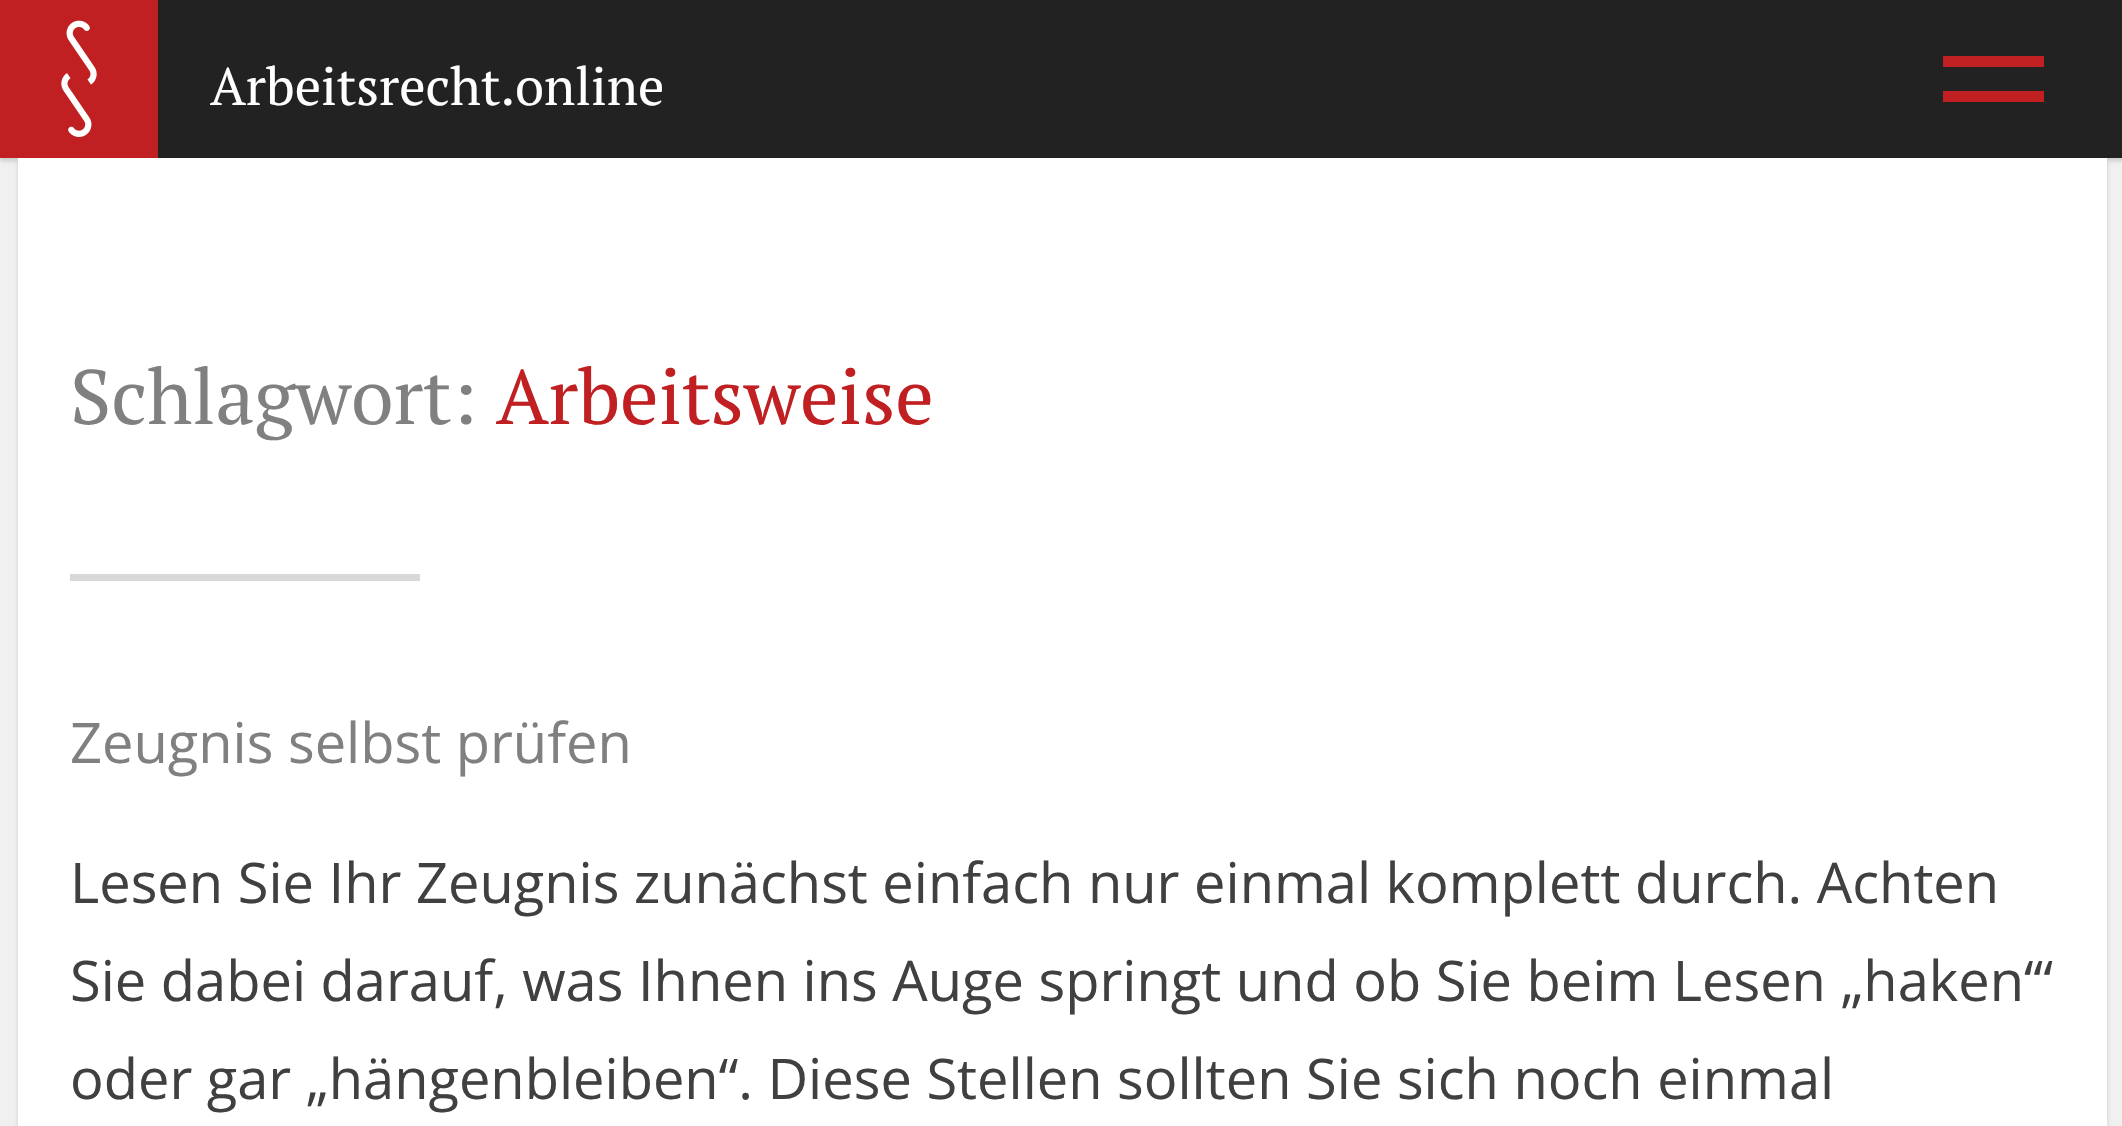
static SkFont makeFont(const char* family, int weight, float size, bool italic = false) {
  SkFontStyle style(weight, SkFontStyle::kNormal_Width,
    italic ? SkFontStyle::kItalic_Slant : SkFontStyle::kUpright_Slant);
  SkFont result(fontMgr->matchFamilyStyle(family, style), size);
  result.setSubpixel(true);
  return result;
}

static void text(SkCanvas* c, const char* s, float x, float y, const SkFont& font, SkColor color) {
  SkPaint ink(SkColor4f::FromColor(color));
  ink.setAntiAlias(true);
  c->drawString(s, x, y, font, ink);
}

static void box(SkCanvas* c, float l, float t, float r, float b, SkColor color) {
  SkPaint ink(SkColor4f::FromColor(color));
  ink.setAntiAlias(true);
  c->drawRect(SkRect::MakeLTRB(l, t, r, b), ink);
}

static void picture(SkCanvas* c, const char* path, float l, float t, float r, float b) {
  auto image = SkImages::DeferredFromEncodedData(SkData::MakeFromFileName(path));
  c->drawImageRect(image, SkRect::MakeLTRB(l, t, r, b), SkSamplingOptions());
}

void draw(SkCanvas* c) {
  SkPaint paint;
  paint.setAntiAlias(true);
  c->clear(0xfff0f0f0);
  paint.setColor(0x26000000);
  paint.setMaskFilter(SkMaskFilter::MakeBlur(kNormal_SkBlurStyle, 2));
  c->drawRect(SkRect::MakeLTRB(0, 4, 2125, 161), paint);
  paint.setMaskFilter(nullptr);
  box(c, 158, 0, 2122, 158, 0xff222222);
  paint.setMaskFilter(SkMaskFilter::MakeBlur(kNormal_SkBlurStyle, 2));
  c->drawRect(SkRect::MakeLTRB(18, 161, 2107, 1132), paint);
  paint.setMaskFilter(nullptr);
  picture(c, "img_01.png", 0, 0, 158, 158);
  SkFont face1 = makeFont("PT Serif", 400, 52.5f);
  text(c, "Arbeitsrecht.online", 210, 105, face1, 0xffffffff);
  box(c, 1943, 56, 2044, 67, 0xffc02022);
  box(c, 1943, 91, 2044, 102, 0xffc02022);
  box(c, 18, 158, 2107, 1126, 0xffffffff);
  SkFont face2 = makeFont("PT Serif", 400, 77);
  text(c, "Schlagwort:", 70, 424, face2, 0xff808080);
  text(c, "Arbeitsweise", 496, 424, face2, 0xffc02022);
  box(c, 70, 574, 420, 581, 0xffd8d8d8);
  SkFont face3 = makeFont("Open Sans", 400, 56);
  text(c, "Zeugnis selbst prüfen", 70, 763, face3, 0xff808080);
  text(c, "Lesen Sie Ihr Zeugnis zunächst einfach nur einmal komplett durch. Achten", 70, 903, face3, 0xff404040);
  text(c, "Sie dabei darauf, was Ihnen ins Auge springt und ob Sie beim Lesen „haken‘“", 70, 1001, face3, 0xff404040);
  text(c, "oder gar „hängenbleiben“. Diese Stellen sollten Sie sich noch einmal", 70, 1099, face3, 0xff404040);
}
